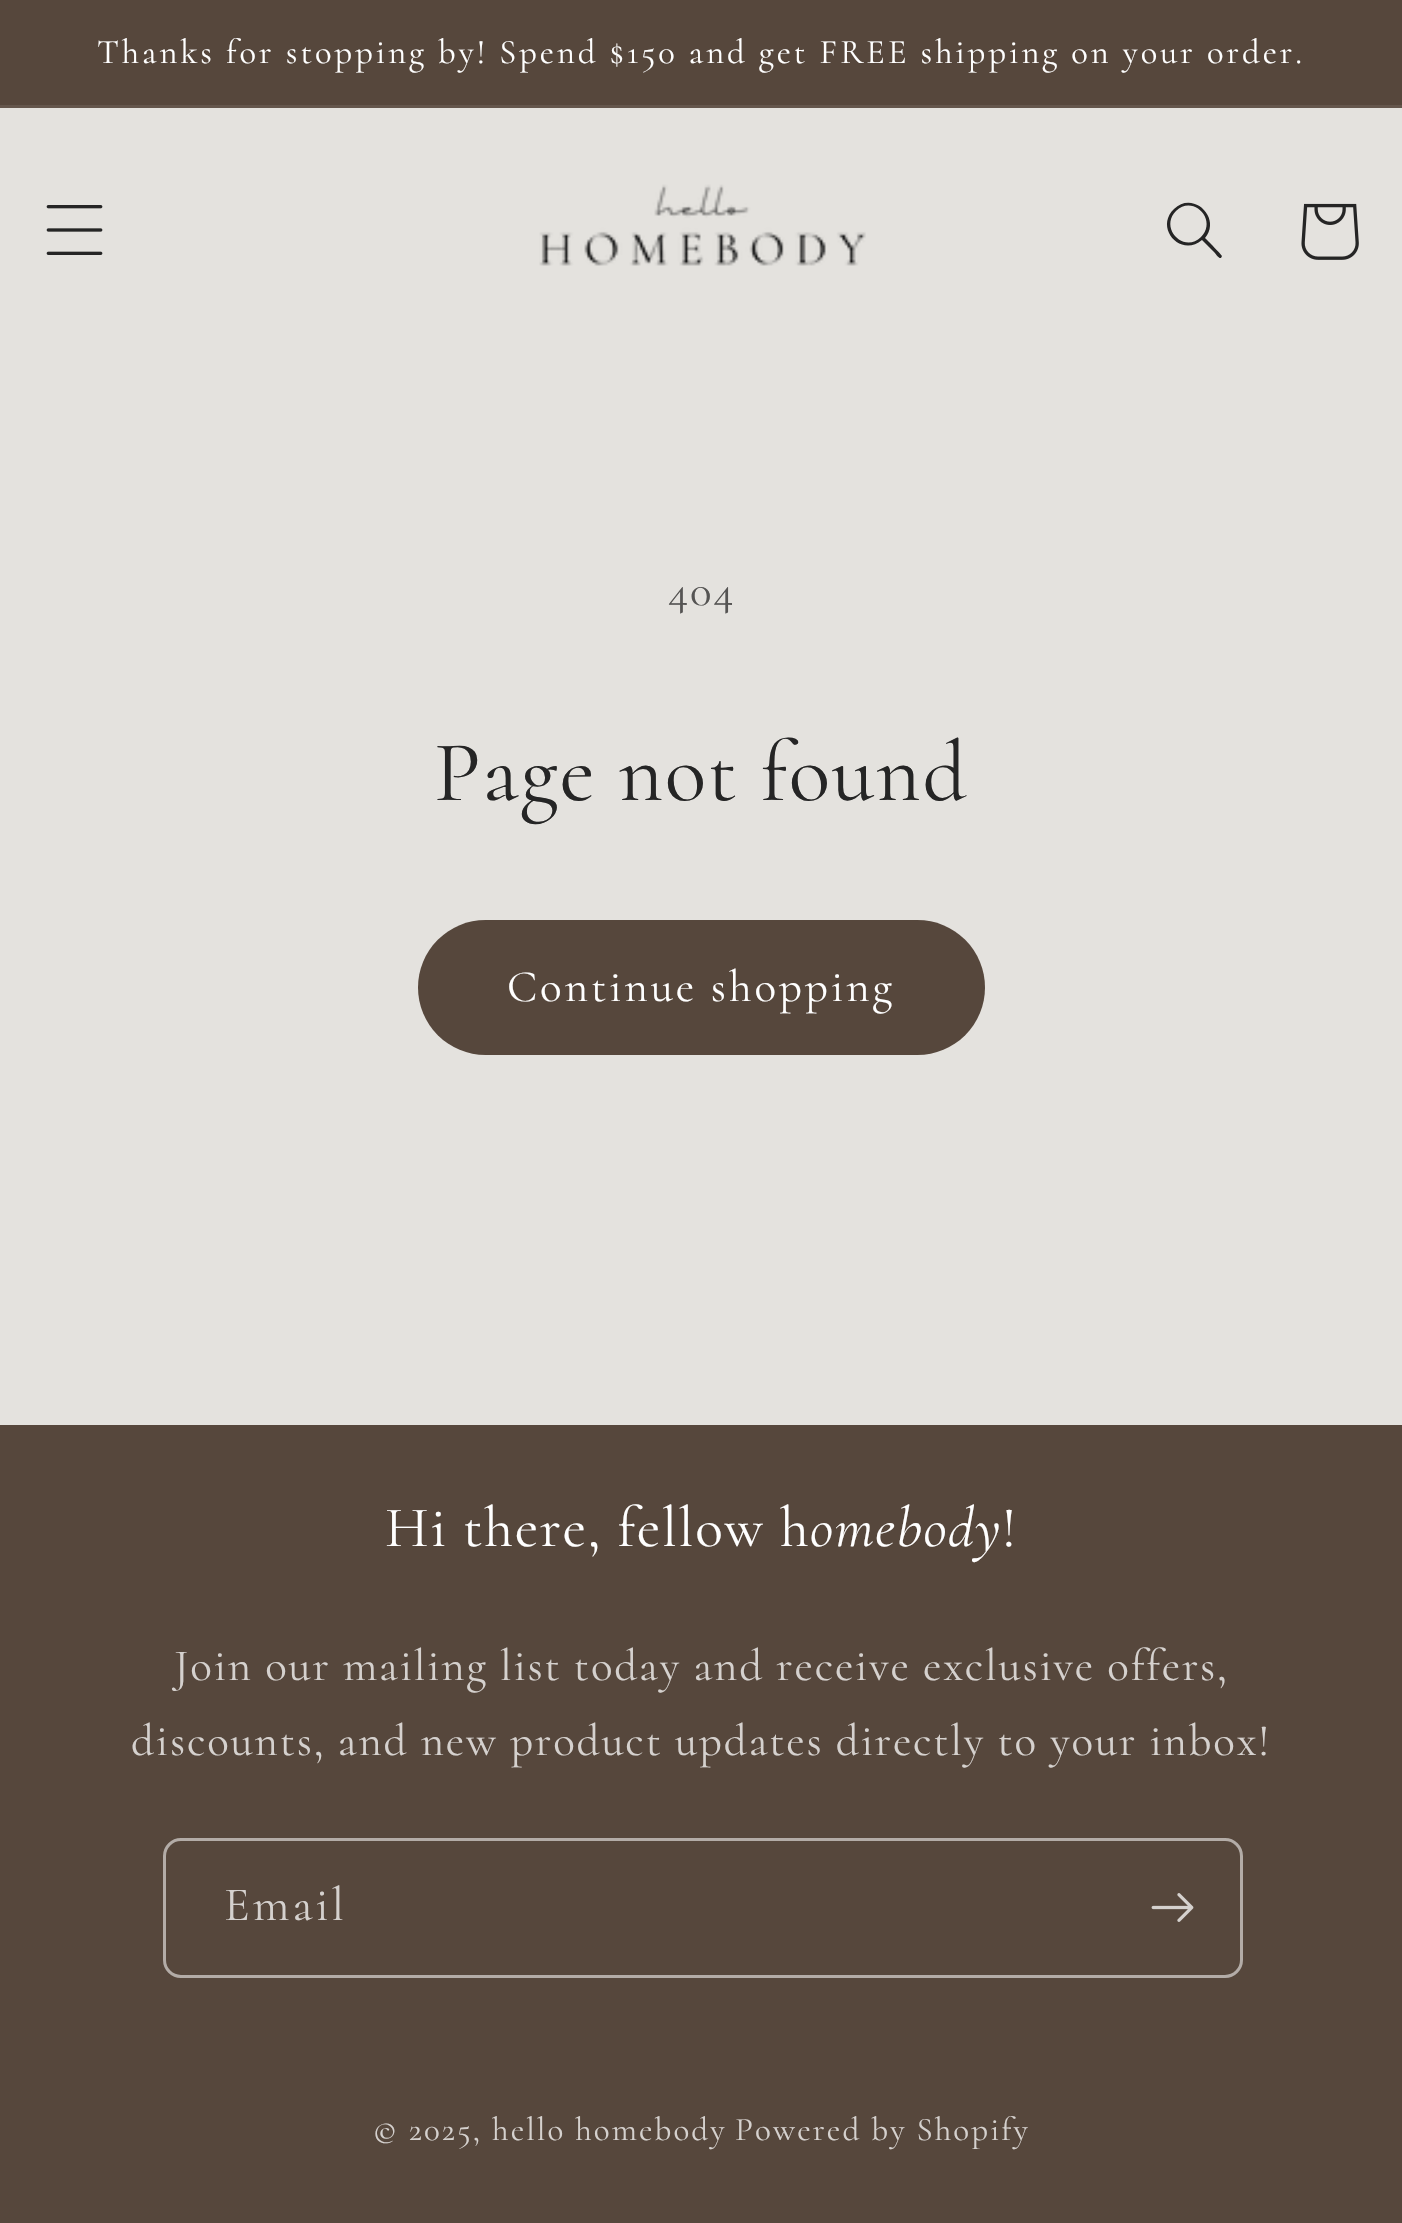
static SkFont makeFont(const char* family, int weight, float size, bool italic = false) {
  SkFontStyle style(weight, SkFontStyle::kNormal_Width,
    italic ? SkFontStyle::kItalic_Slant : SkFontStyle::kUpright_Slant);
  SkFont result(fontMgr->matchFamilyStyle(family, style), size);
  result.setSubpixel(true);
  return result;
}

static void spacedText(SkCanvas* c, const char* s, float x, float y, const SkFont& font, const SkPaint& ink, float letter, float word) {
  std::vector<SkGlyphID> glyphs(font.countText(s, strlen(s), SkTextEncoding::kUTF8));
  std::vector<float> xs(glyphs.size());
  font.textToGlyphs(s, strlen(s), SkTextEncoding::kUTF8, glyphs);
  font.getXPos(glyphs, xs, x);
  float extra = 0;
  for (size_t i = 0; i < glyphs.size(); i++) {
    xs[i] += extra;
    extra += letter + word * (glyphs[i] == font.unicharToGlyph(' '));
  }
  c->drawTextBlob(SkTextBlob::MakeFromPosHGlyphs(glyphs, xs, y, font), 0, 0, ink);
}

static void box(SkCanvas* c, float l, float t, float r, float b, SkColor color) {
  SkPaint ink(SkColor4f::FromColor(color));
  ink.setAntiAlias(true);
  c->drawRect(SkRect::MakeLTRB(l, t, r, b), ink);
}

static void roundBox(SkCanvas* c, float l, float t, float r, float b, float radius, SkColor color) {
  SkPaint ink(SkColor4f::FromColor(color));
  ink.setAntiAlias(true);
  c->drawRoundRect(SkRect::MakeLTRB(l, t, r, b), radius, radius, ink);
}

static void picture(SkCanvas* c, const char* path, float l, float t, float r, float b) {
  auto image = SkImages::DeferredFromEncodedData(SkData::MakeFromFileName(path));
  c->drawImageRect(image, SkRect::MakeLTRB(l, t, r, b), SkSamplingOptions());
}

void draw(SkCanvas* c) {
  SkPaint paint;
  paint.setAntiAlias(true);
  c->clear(0xffe4e2de);
  box(c, 0, 0, 1402, 105, 0xff56473c);
  box(c, 0, 105, 1402, 108, 0xff64564c);
  SkFont face1 = makeFont("Cormorant", 400, 34.5f);
  paint.setColor(0xffffffff);
  spacedText(c, "Thanks for stopping by! Spend $150 and get FREE shipping on your order.", 97, 63, face1, paint, 3, 0);
  picture(c, "img_01.png", 46, 205, 103, 255);
  picture(c, "img_02.png", 539, 184, 866, 266);
  paint.setColor(0xff252525);
  c->drawPath(SkPathBuilder(SkPathFillType::kEvenOdd).moveTo(1201, 237).cubicTo(1184, 254, 1159, 228, 1176, 211).cubicTo(1193, 194, 1218, 220, 1201, 237).close().moveTo(1202, 240).cubicTo(1181, 258, 1154, 228, 1174, 209).cubicTo(1193, 190, 1222, 218, 1205, 238).cubicTo(1207, 240, 1222, 255, 1222, 256).lineTo(1221, 258).cubicTo(1219, 259, 1215, 253, 1214, 252).close().detach(), paint);
  picture(c, "img_03.png", 1301, 203, 1359, 260);
  SkFont face2 = makeFont("Cormorant", 400, 45);
  paint.setColor(0xff555453);
  spacedText(c, "404", 668, 605, face2, paint, 1.8f, 0);
  SkFont face3 = makeFont("Cormorant", 400, 86.25f);
  paint.setColor(0xff252525);
  spacedText(c, "Page not found", 434, 800, face3, paint, 1.75f, 0);
  roundBox(c, 418, 920, 985, 1055, 67.5f, 0xff56473c);
  paint.setColor(0xffffffff);
  spacedText(c, "Continue shopping", 507, 1001, face2, paint, 3, 0);
  box(c, 0, 1425, 1402, 2223, 0xff56473c);
  SkFont face4 = makeFont("Cormorant", 400, 57.5f);
  spacedText(c, "Hi there, fellow h", 385, 1546, face4, paint, 1.75f, 0);
  SkFont face5 = makeFont("Cormorant", 400, 57.5f, true);
  spacedText(c, "omebody", 810, 1546, face5, paint, 1.75f, 0);
  spacedText(c, "!", 1002, 1546, face4, paint, 1.75f, 0);
  paint.setColor(0xffd5d1ce);
  spacedText(c, "Join our mailing list today and receive exclusive offers,", 174, 1680, face2, paint, 1.8f, 0);
  spacedText(c, "discounts, and new product updates directly to your inbox!", 131, 1755, face2, paint, 1.8f, 0);
  paint.setStyle(SkPaint::kStroke_Style);
  paint.setStrokeWidth(3);
  paint.setColor(0xffb3aca7);
  c->drawRoundRect(SkRect::MakeLTRB(164.5f, 1839.5f, 1241.5f, 1976.5f), 16.5f, 16.5f, paint);
  SkFont face6 = makeFont("Cormorant", 400, 48);
  paint.setStyle(SkPaint::kFill_Style);
  paint.setColor(0xffd5d1ce);
  spacedText(c, "Email", 224, 1920, face6, paint, 3, 0);
  picture(c, "img_04.png", 1151, 1893, 1194, 1922);
  SkFont face7 = makeFont("Cormorant", 400, 33);
  spacedText(c, "© 2025, hello homebody", 373, 2140, face7, paint, 2.1f, 0);
  spacedText(c, "Powered by Shopify", 735, 2140, face7, paint, 2.1f, 0);
}
